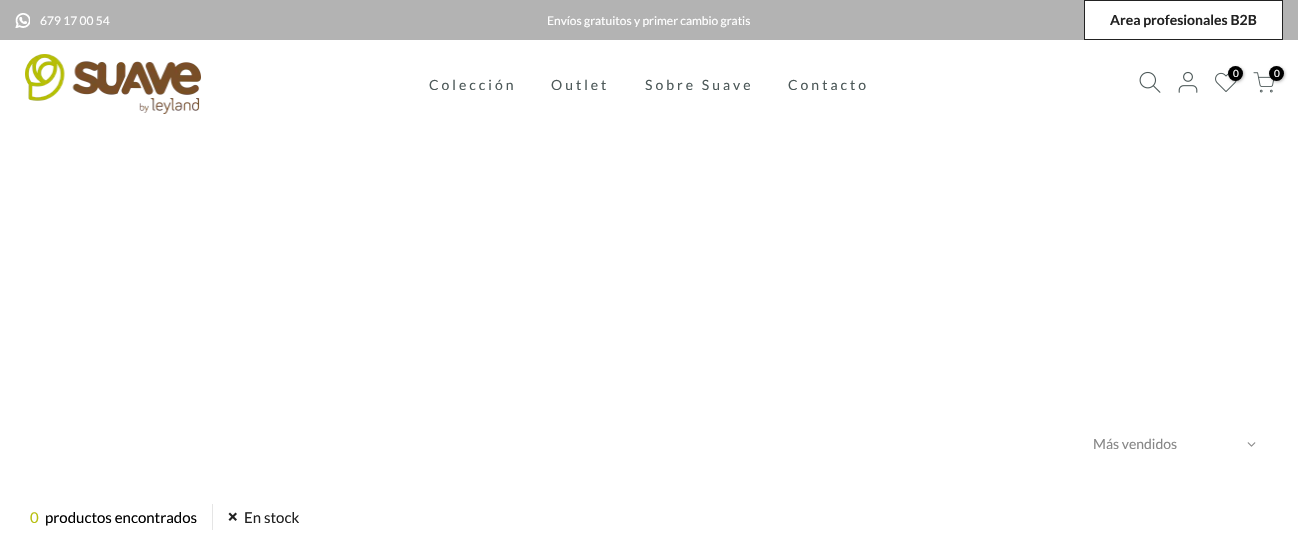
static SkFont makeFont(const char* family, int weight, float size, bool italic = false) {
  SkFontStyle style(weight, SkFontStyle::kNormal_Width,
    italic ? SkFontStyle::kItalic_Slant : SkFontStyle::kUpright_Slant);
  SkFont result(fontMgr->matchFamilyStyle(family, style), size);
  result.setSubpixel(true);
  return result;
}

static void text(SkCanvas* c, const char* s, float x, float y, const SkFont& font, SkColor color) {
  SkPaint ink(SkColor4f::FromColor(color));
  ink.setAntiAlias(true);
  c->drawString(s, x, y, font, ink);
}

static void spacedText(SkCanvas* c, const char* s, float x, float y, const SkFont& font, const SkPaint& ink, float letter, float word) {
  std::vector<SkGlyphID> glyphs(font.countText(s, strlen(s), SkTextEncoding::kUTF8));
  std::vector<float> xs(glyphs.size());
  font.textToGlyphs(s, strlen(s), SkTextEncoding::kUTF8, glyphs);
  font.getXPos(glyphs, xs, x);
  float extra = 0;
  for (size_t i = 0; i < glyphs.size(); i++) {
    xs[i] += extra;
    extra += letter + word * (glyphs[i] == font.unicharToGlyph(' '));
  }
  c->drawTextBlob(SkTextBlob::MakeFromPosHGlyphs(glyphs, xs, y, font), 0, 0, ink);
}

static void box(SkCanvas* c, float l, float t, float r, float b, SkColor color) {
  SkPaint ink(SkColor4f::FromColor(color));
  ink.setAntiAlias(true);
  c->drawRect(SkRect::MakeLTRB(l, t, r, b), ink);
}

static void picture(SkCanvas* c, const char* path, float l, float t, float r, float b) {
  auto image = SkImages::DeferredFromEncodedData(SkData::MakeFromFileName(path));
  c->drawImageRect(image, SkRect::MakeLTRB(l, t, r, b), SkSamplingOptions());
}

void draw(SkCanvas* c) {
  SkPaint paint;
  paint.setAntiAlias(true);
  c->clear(0xffffffff);
  box(c, 0, 0, 1298, 40, 0xffb3b3b3);
  picture(c, "img_01.png", 15, 13, 30, 28);
  SkFont face1 = makeFont("Lato", 400, 12);
  text(c, "679 17 00 54", 40, 25, face1, 0xffffffff);
  text(c, "Envíos gratuitos y primer cambio gratis", 547, 25, face1, 0xffffffff);
  paint.setColor(0xffffffff);
  c->drawRect(SkRect::MakeLTRB(1084.5f, 0.5f, 1282.5f, 39.5f), paint);
  paint.setStyle(SkPaint::kStroke_Style);
  paint.setStrokeWidth(1);
  paint.setColor(0xff222222);
  c->drawRect(SkRect::MakeLTRB(1084.5f, 0.5f, 1282.5f, 39.5f), paint);
  SkFont face2 = makeFont("Lato", 700, 14);
  text(c, "Area profesionales B2B", 1110, 25, face2, 0xff222222);
  picture(c, "img_02.png", 25, 54, 201, 114);
  picture(c, "img_03.png", 1139, 71, 1161, 93);
  picture(c, "img_04.png", 1178, 71, 1198, 93);
  picture(c, "img_05.png", 1215, 72, 1237, 92);
  paint.setStyle(SkPaint::kFill_Style);
  paint.setColor(0x4d000000);
  paint.setMaskFilter(SkMaskFilter::MakeBlur(kNormal_SkBlurStyle, 1.5f));
  c->drawRoundRect(SkRect::MakeLTRB(1229, 67, 1244, 82), 7.5f, 7.5f, paint);
  paint.setMaskFilter(nullptr);
  paint.setColor(0xff000000);
  c->drawCircle(1235.5f, 73.5f, 7.5f, paint);
  SkFont face3 = makeFont("Lato", 400, 10);
  text(c, "0", 1233, 77, face3, 0xffffffff);
  picture(c, "img_06.png", 1253, 72, 1274, 93);
  paint.setColor(0x4d000000);
  paint.setMaskFilter(SkMaskFilter::MakeBlur(kNormal_SkBlurStyle, 1.5f));
  c->drawRoundRect(SkRect::MakeLTRB(1270, 67, 1285, 82), 7.5f, 7.5f, paint);
  paint.setMaskFilter(nullptr);
  paint.setColor(0xff000000);
  c->drawCircle(1276.5f, 73.5f, 7.5f, paint);
  text(c, "0", 1274, 77, face3, 0xffffffff);
  SkFont face4 = makeFont("Lato", 400, 14);
  paint.setColor(0xff4d5959);
  spacedText(c, "Colección", 429, 90, face4, paint, 3, 0);
  spacedText(c, "Outlet", 551, 90, face4, paint, 3, 0);
  spacedText(c, "Sobre Suave", 645, 90, face4, paint, 3, 0);
  spacedText(c, "Contacto", 788, 90, face4, paint, 3, 0);
  text(c, "Más vendidos", 1093, 449, face4, 0xff878787);
  picture(c, "img_07.png", 1247, 442, 1256, 447);
  box(c, 212, 504, 213, 530, 0xffe5e5e5);
  SkFont face5 = makeFont("Lato", 400, 15);
  text(c, "0", 30, 523, face5, 0xffb7bf10);
  text(c, "productos encontrados", 45, 523, face5, 0xff000000);
  paint.setColor(0xff222222);
  c->drawPath(SkPathBuilder().moveTo(230, 512.5f).lineTo(237, 519.5f).lineTo(235.5f, 521).lineTo(228.5f, 514).close().detach(), paint);
  text(c, "En stock", 244, 523, face5, 0xff222222);
  c->drawPath(SkPathBuilder().moveTo(228.5f, 519.5f).lineTo(235.5f, 512.5f).lineTo(237, 514).lineTo(230, 521).close().detach(), paint);
}
